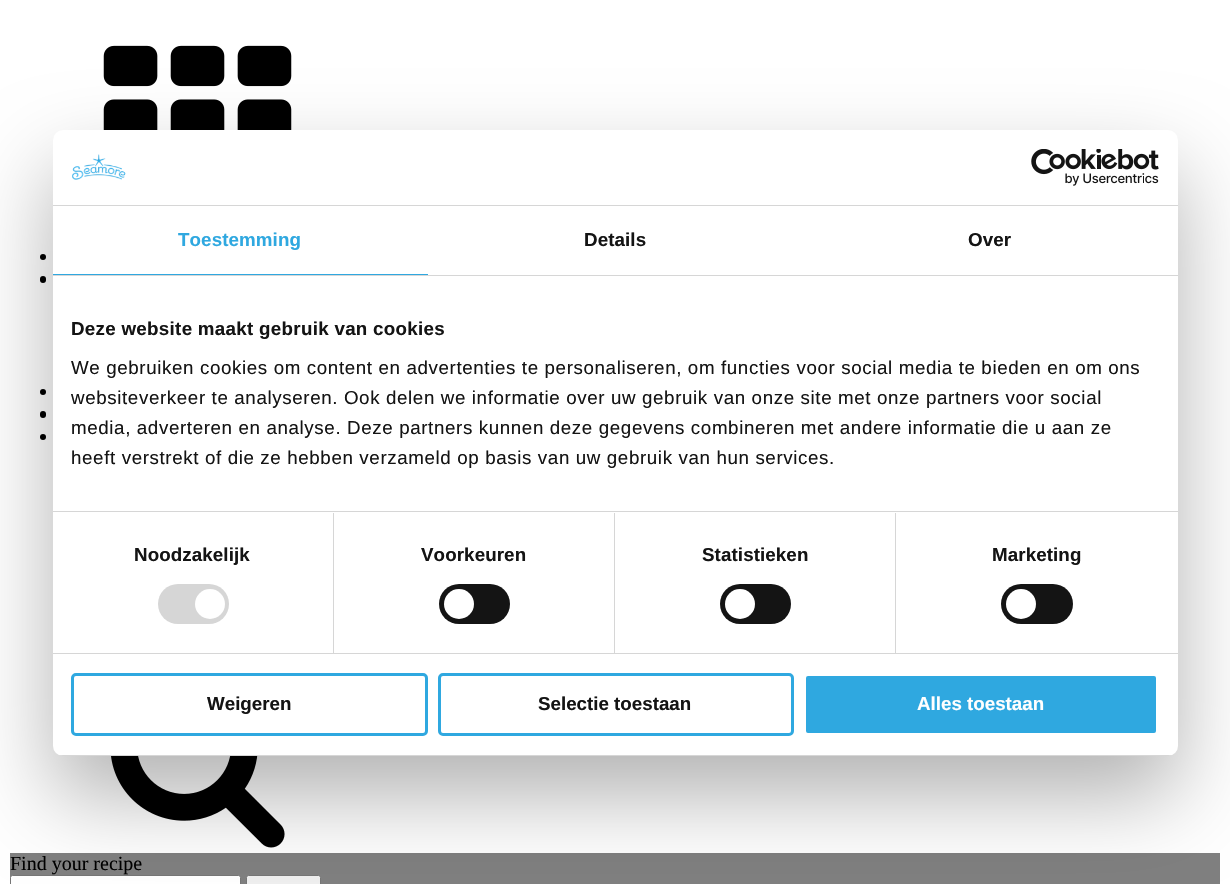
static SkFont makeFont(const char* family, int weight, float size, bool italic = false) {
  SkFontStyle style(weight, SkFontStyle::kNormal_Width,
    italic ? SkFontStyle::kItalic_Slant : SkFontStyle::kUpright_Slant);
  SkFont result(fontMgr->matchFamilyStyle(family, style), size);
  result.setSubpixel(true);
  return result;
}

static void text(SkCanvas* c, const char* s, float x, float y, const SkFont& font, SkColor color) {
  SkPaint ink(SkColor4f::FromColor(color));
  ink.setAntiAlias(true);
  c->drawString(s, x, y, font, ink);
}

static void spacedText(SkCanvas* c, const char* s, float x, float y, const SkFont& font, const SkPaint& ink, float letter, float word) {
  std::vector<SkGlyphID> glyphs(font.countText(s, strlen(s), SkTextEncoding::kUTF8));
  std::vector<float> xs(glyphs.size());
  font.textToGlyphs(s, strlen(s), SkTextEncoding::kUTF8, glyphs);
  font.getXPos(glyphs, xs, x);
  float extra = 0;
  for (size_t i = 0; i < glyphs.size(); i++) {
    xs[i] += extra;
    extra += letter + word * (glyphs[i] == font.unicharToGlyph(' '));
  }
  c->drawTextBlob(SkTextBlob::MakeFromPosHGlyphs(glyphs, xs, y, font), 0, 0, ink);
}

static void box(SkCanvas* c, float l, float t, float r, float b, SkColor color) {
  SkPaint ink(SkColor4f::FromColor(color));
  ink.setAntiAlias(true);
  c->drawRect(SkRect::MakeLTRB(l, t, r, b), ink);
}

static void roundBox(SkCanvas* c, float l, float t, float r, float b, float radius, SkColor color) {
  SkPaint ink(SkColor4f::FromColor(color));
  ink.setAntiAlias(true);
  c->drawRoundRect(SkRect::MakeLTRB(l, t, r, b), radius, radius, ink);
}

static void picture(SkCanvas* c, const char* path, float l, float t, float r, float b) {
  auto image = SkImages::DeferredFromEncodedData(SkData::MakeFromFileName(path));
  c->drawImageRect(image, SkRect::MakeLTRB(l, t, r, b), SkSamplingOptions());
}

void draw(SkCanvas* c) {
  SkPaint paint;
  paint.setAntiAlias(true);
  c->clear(0xffffffff);
  picture(c, "img_01.png", 103, 45, 292, 130);
  paint.setColor(0xff000000);
  c->drawCircle(43, 257, 3, paint);
  roundBox(c, 40, 276, 46, 283, 3, 0xff000000);
  c->drawCircle(43, 392, 3, paint);
  roundBox(c, 40, 411, 46, 418, 3, 0xff000000);
  c->drawCircle(43, 437, 3, paint);
  picture(c, "img_02.png", 111, 756, 285, 848);
  box(c, 10, 853, 1220, 884, 0xff808080);
  paint.setColor(0xffffffff);
  c->drawRoundRect(SkRect::MakeLTRB(10.5f, 875.5f, 240.5f, 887.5f), 2, 2, paint);
  paint.setStyle(SkPaint::kStroke_Style);
  paint.setStrokeWidth(1);
  paint.setColor(0xff767676);
  c->drawRoundRect(SkRect::MakeLTRB(10.5f, 875.5f, 240.5f, 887.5f), 2, 2, paint);
  paint.setStyle(SkPaint::kFill_Style);
  paint.setColor(0xffefefef);
  c->drawRoundRect(SkRect::MakeLTRB(246.5f, 875.5f, 320.5f, 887.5f), 2, 2, paint);
  paint.setStyle(SkPaint::kStroke_Style);
  paint.setColor(0xff767676);
  c->drawRoundRect(SkRect::MakeLTRB(246.5f, 875.5f, 320.5f, 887.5f), 2, 2, paint);
  paint.setStyle(SkPaint::kFill_Style);
  paint.setColor(0x4d000000);
  paint.setMaskFilter(SkMaskFilter::MakeBlur(kNormal_SkBlurStyle, 42.5f));
  c->drawRoundRect(SkRect::MakeLTRB(53, 170, 1178, 796), 10, 10, paint);
  paint.setMaskFilter(nullptr);
  roundBox(c, 53, 130, 1178, 756, 10, 0xffffffff);
  box(c, 53, 205, 1178, 206, 0xffd6d6d6);
  picture(c, "img_03.png", 72, 154, 126, 180);
  picture(c, "img_04.png", 1031, 149, 1159, 186);
  box(c, 53, 275, 1178, 276, 0xffd6d6d6);
  box(c, 53, 274, 428, 275, 0xff2fa8e0);
  SkFont face1 = makeFont("Liberation Sans", 700, 18.75f);
  paint.setColor(0xff2fa8e0);
  spacedText(c, "Toestemming", 178, 246, face1, paint, 0.1f, 0);
  paint.setColor(0xff141414);
  spacedText(c, "Details", 584, 246, face1, paint, 0.1f, 0);
  spacedText(c, "Over", 968, 246, face1, paint, 0.1f, 0);
  box(c, 53, 511, 1178, 512, 0xffd6d6d6);
  spacedText(c, "Deze website maakt gebruik van cookies", 71, 335, face1, paint, 0.3f, 0);
  SkFont face2 = makeFont("Liberation Sans", 400, 18.75f);
  spacedText(c, "We gebruiken cookies om content en advertenties te personaliseren, om functies voor social media te bieden en om ons", 71, 374, face2, paint, 0.62f, 0);
  spacedText(c, "websiteverkeer te analyseren. Ook delen we informatie over uw gebruik van onze site met onze partners voor social", 71, 404, face2, paint, 0.62f, 0);
  spacedText(c, "media, adverteren en analyse. Deze partners kunnen deze gegevens combineren met andere informatie die u aan ze", 71, 434, face2, paint, 0.62f, 0);
  spacedText(c, "heeft verstrekt of die ze hebben verzameld op basis van uw gebruik van hun services.", 71, 464, face2, paint, 0.62f, 0);
  box(c, 53, 653, 1178, 654, 0xffd6d6d6);
  box(c, 333, 513, 334, 653, 0xffd6d6d6);
  spacedText(c, "Noodzakelijk", 134, 561, face1, paint, 0.1f, 0);
  roundBox(c, 158, 584, 229, 624, 20, 0xffd6d6d6);
  paint.setColor(0xffffffff);
  c->drawCircle(210, 604, 15, paint);
  box(c, 614, 513, 615, 653, 0xffd6d6d6);
  paint.setColor(0xff141414);
  spacedText(c, "Voorkeuren", 421, 561, face1, paint, 0.1f, 0);
  roundBox(c, 439, 584, 510, 624, 20, 0xff141414);
  paint.setColor(0xffffffff);
  c->drawCircle(459, 604, 15, paint);
  box(c, 895, 513, 896, 653, 0xffd6d6d6);
  paint.setColor(0xff141414);
  spacedText(c, "Statistieken", 702, 561, face1, paint, 0.1f, 0);
  roundBox(c, 720, 584, 791, 624, 20, 0xff141414);
  paint.setColor(0xffffffff);
  c->drawCircle(740, 604, 15, paint);
  paint.setColor(0xff141414);
  spacedText(c, "Marketing", 992, 561, face1, paint, 0.1f, 0);
  roundBox(c, 1001, 584, 1073, 624, 20, 0xff141414);
  paint.setColor(0xffffffff);
  c->drawCircle(1021, 604, 15, paint);
  c->save();
  c->clipPath(SkPathBuilder().moveTo(63, 130).lineTo(1168, 130).cubicTo(1173.5f, 130, 1178, 134.5f, 1178, 140).lineTo(1178, 746).cubicTo(1178, 751.5f, 1173.5f, 756, 1168, 756).lineTo(63, 756).cubicTo(57.5f, 756, 53, 751.5f, 53, 746).lineTo(53, 140).cubicTo(53, 134.5f, 57.5f, 130, 63, 130).close().detach(), true);
  box(c, 53, 755, 1178, 756, 0xffd6d6d6);
  c->restore();
  paint.setStyle(SkPaint::kStroke_Style);
  paint.setStrokeWidth(3);
  paint.setColor(0xff2fa8e0);
  c->drawRoundRect(SkRect::MakeLTRB(72.5f, 674.5f, 426.5f, 734.5f), 3.5f, 3.5f, paint);
  text(c, "Weigeren", 207, 710, face1, 0xff141414);
  c->drawRoundRect(SkRect::MakeLTRB(439.5f, 674.5f, 792.5f, 734.5f), 3.5f, 3.5f, paint);
  text(c, "Selectie toestaan", 538, 710, face1, 0xff141414);
  paint.setStyle(SkPaint::kFill_Style);
  c->drawRoundRect(SkRect::MakeLTRB(804.5f, 674.5f, 1157.5f, 734.5f), 3.5f, 3.5f, paint);
  paint.setStyle(SkPaint::kStroke_Style);
  paint.setColor(0xffffffff);
  c->drawRoundRect(SkRect::MakeLTRB(804.5f, 674.5f, 1157.5f, 734.5f), 3.5f, 3.5f, paint);
  text(c, "Alles toestaan", 917, 710, face1, 0xffffffff);
  SkFont face3 = makeFont("Liberation Serif", 400, 20);
  text(c, "Find your recipe", 10, 870, face3, 0xff000000);
}
